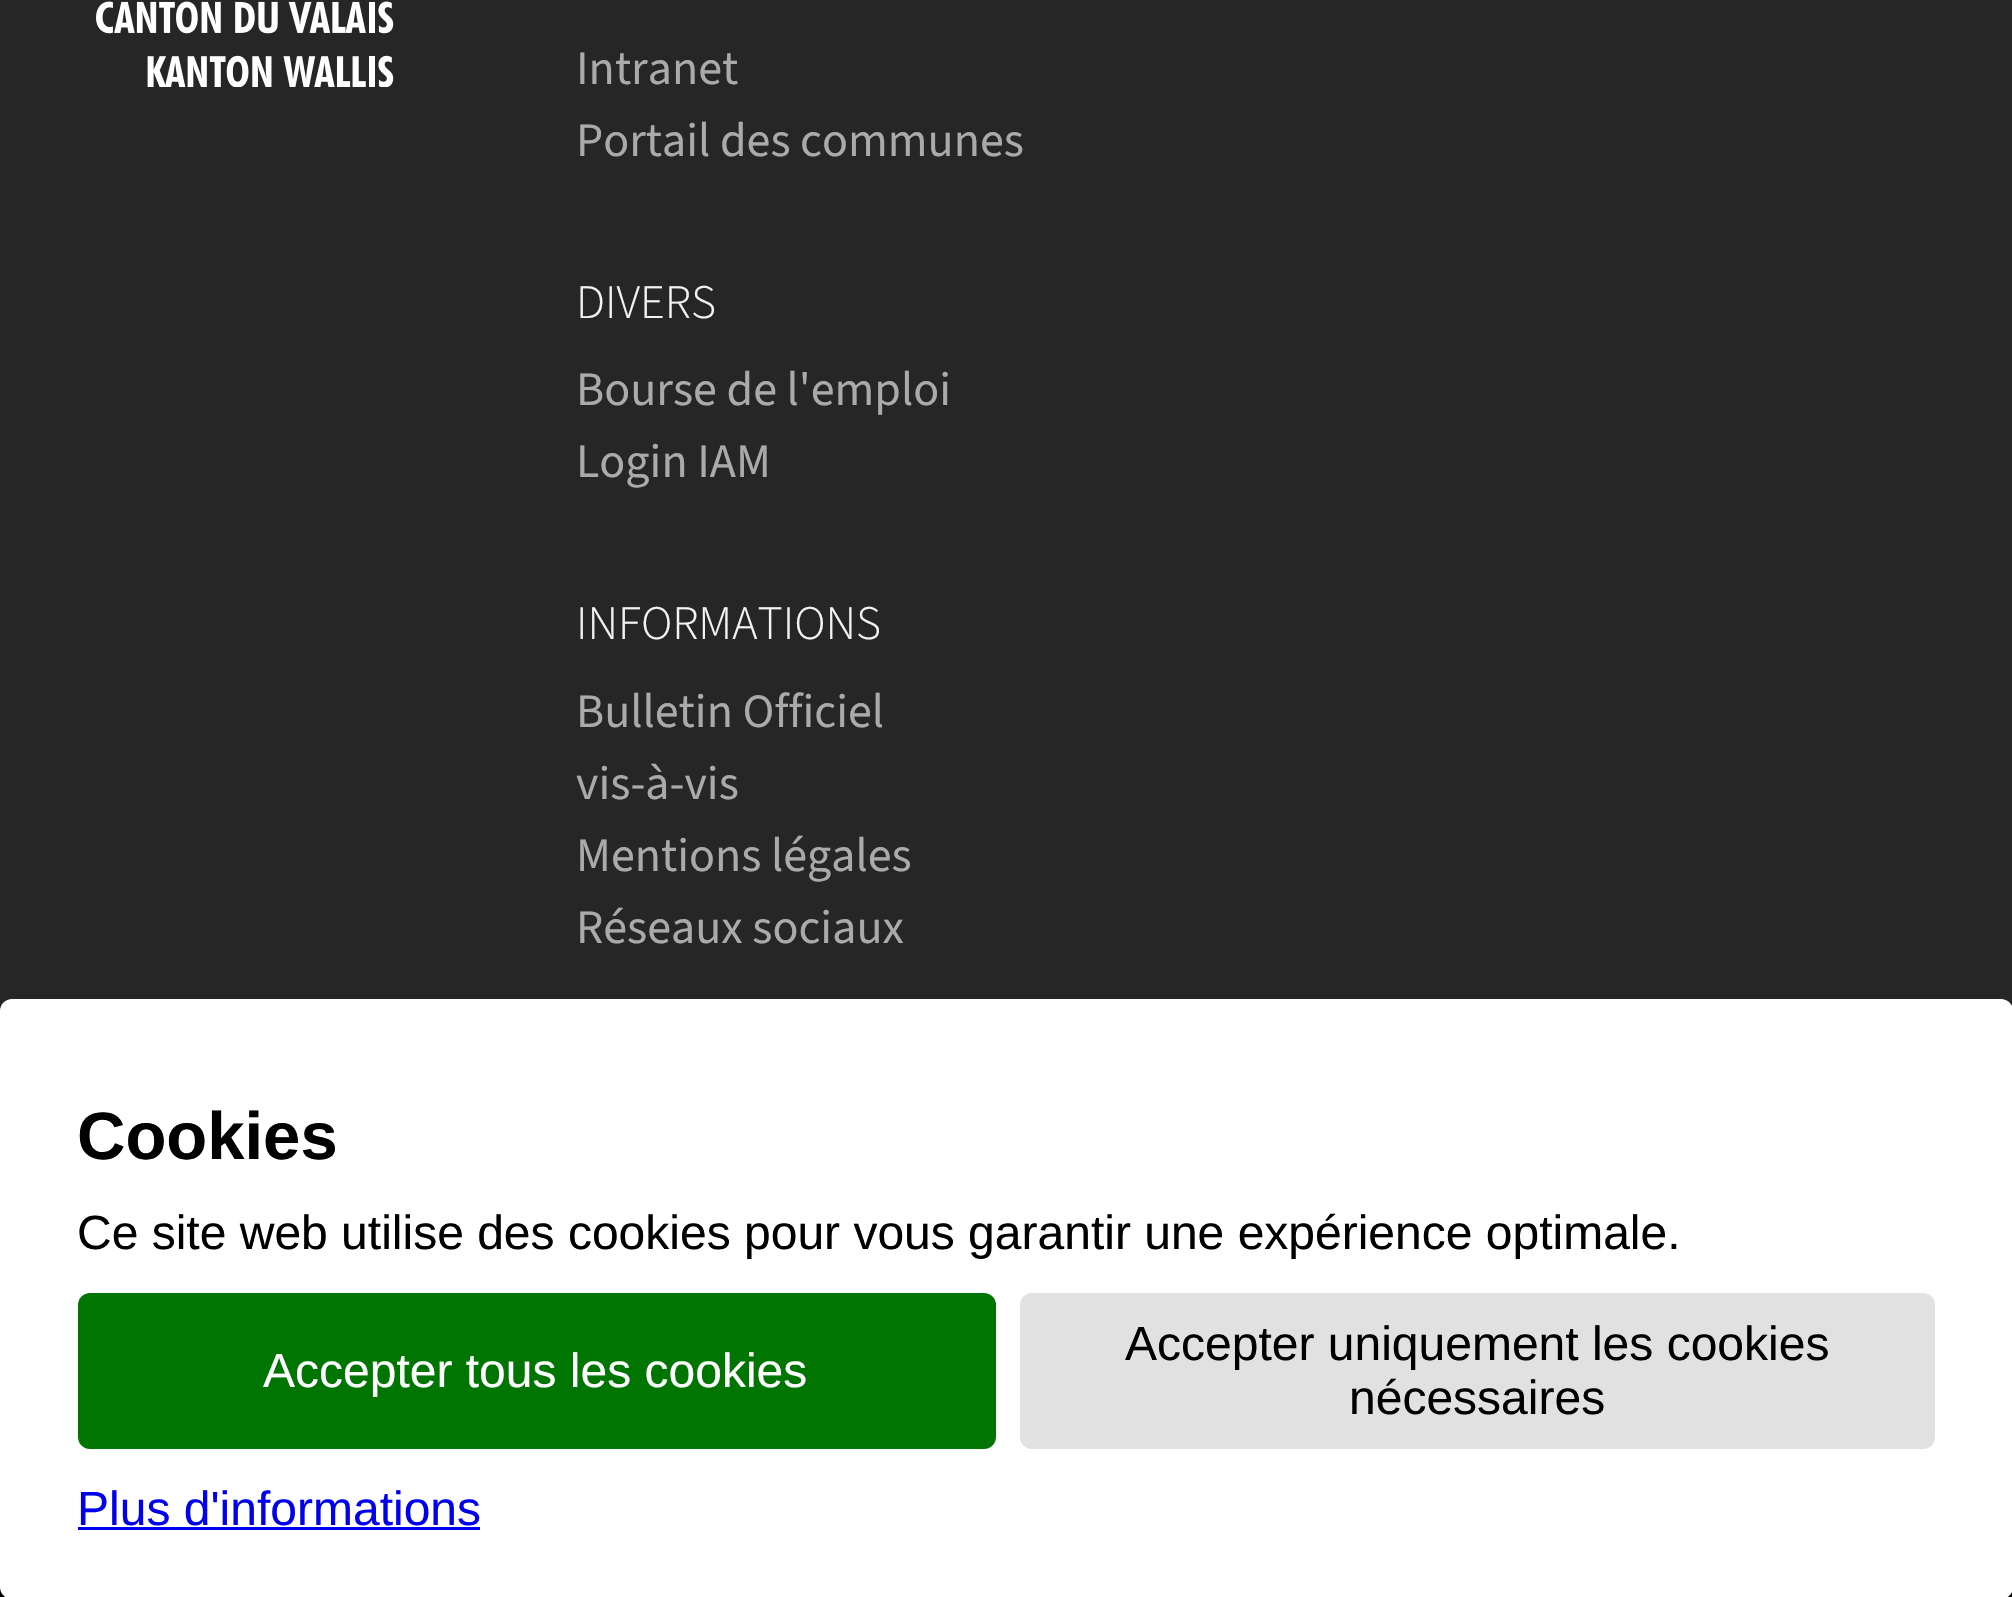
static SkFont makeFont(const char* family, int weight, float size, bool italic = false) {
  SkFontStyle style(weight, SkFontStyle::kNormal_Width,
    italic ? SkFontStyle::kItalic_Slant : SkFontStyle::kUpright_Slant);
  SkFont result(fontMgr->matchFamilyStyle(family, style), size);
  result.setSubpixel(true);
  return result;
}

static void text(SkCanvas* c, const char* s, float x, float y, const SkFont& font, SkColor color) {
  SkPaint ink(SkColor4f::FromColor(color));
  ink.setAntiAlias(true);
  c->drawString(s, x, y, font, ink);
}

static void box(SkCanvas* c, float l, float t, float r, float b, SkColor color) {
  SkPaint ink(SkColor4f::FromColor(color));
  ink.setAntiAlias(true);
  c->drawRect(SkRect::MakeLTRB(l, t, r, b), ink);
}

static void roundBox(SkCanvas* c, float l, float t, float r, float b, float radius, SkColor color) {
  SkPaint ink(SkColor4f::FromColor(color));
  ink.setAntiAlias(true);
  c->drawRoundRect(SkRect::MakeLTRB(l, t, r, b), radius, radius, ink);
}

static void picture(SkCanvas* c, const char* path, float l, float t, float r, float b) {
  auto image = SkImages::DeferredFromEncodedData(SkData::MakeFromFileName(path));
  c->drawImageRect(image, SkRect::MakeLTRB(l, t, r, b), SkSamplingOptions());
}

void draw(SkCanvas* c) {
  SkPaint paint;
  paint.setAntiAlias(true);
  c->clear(0xff262626);
  picture(c, "img_01.png", 96, 1, 394, 87);
  SkFont face1 = makeFont("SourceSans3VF", 400, 48);
  text(c, "Intranet", 576, 84, face1, 0xffaaaaaa);
  text(c, "Portail des communes", 576, 156, face1, 0xffaaaaaa);
  SkFont face2 = makeFont("SourceSans3VF", 300, 48);
  text(c, "DIVERS", 576, 318, face2, 0xfff3f3f2);
  text(c, "Bourse de l'emploi", 576, 405, face1, 0xffaaaaaa);
  text(c, "Login IAM", 576, 477, face1, 0xffaaaaaa);
  text(c, "INFORMATIONS", 576, 639, face2, 0xfff3f3f2);
  text(c, "Bulletin Officiel", 576, 727, face1, 0xffaaaaaa);
  text(c, "vis-à-vis", 576, 799, face1, 0xffaaaaaa);
  text(c, "Mentions légales", 576, 871, face1, 0xffaaaaaa);
  text(c, "Réseaux sociaux", 576, 943, face1, 0xffaaaaaa);
  box(c, 0, 1587, 2012, 1597, 0xff000000);
  roundBox(c, 0, 999, 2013, 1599, 12, 0xffffffff);
  SkFont face3 = makeFont("Liberation Sans", 700, 67);
  text(c, "Cookies", 77, 1159, face3, 0xff000000);
  SkFont face4 = makeFont("Liberation Sans", 400, 48);
  text(c, "Ce site web utilise des cookies pour vous garantir une expérience optimale.", 77, 1249, face4, 0xff000000);
  roundBox(c, 78, 1293, 996, 1449, 12, 0xff007502);
  text(c, "Accepter tous les cookies", 263, 1387, face4, 0xffffffff);
  roundBox(c, 1020, 1293, 1935, 1449, 12, 0xffe1e1e1);
  text(c, "Accepter uniquement les cookies", 1125, 1360, face4, 0xff000000);
  text(c, "nécessaires", 1349, 1414, face4, 0xff000000);
  text(c, "Plus d'informations", 77, 1525, face4, 0xff0000ee);
  box(c, 78, 1527, 480, 1530, 0xff0000ee);
}
